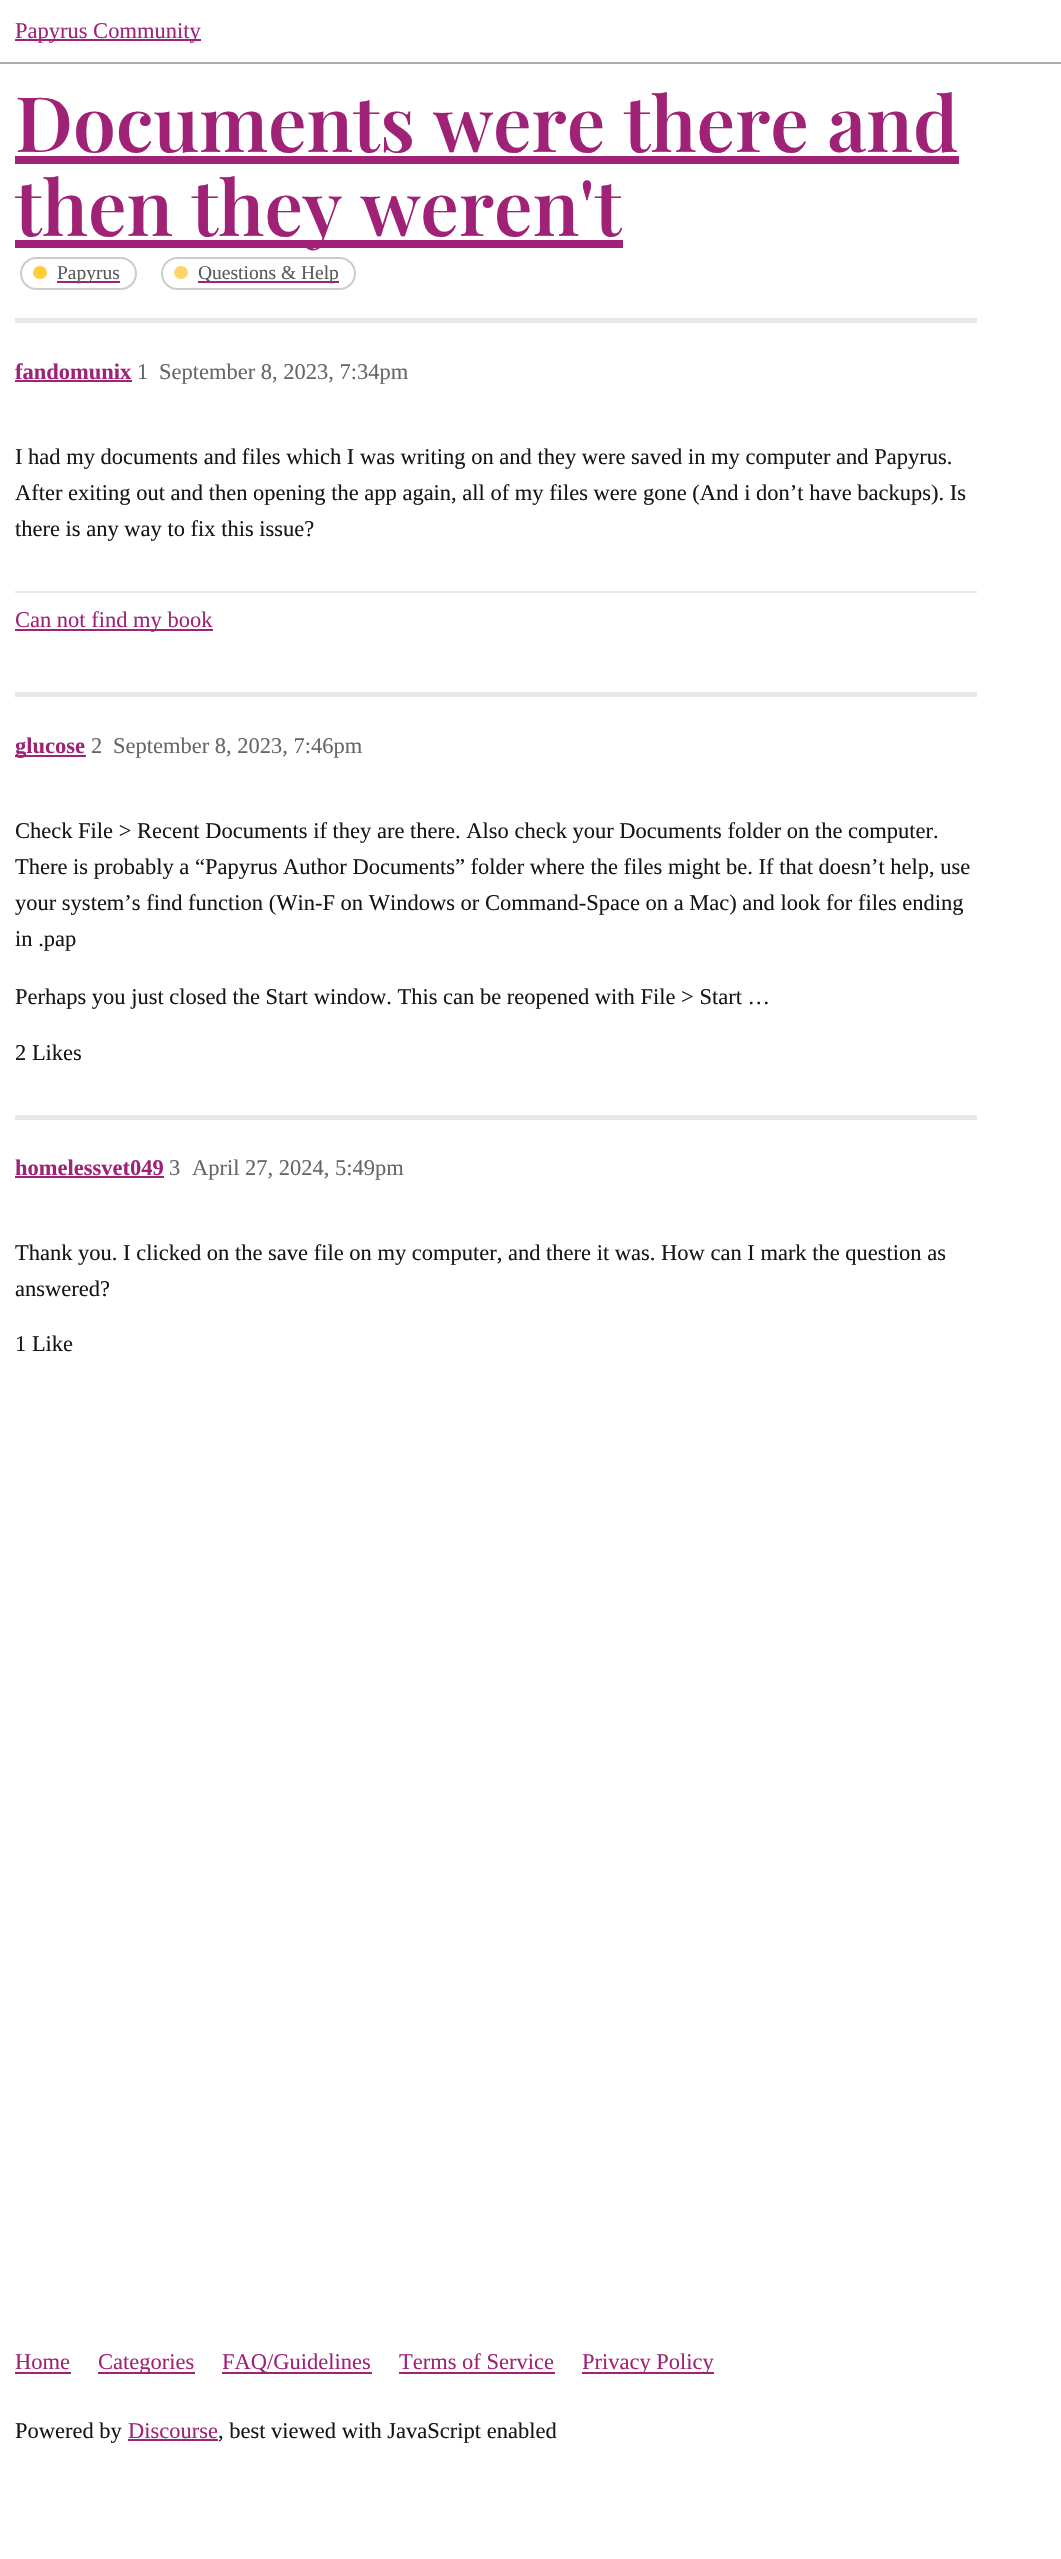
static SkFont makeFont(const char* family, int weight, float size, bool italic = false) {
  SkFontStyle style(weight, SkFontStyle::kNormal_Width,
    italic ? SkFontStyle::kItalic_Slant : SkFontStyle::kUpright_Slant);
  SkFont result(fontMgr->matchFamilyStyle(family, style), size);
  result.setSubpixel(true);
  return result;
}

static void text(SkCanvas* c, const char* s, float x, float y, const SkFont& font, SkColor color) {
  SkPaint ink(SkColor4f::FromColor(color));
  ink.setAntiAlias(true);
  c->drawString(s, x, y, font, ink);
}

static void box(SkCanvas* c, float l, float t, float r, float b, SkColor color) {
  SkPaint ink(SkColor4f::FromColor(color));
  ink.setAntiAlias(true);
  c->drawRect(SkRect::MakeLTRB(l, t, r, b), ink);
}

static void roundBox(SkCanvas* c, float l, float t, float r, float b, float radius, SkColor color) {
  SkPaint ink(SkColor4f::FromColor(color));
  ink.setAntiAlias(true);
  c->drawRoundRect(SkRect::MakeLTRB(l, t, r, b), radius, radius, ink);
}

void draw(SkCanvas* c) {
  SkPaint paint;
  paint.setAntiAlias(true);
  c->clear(0xffffffff);
  box(c, 0, 62, 1061, 64, 0xffaeaeae);
  box(c, 15, 39, 201, 41, 0xff9f2277);
  SkFont face1 = makeFont("Liberation Serif", 400, 22.5f);
  text(c, "Papyrus Community", 15, 38, face1, 0xff9f2277);
  SkFont face2 = makeFont("Playfair Display", 600, 76.5f);
  text(c, "Documents were there and", 15, 152, face2, 0xff9f2277);
  box(c, 15, 156, 959, 164, 0xff9f2277);
  box(c, 15, 240, 623, 248, 0xff9f2277);
  text(c, "then they weren't", 15, 236, face2, 0xff9f2277);
  paint.setStyle(SkPaint::kStroke_Style);
  paint.setStrokeWidth(2);
  paint.setColor(0xffcccccc);
  c->drawRoundRect(SkRect::MakeLTRB(21, 258, 136, 289), 15.5f, 15.5f, paint);
  roundBox(c, 33, 266, 47, 279, 6.5f, 0xffffce3a);
  box(c, 57, 281, 120, 283, 0xff9f2277);
  SkFont face3 = makeFont("Liberation Serif", 400, 19.5f);
  text(c, "Papyrus", 57, 279, face3, 0xff5a5a5e);
  c->drawRoundRect(SkRect::MakeLTRB(162, 258, 355, 289), 15.5f, 15.5f, paint);
  roundBox(c, 174, 266, 188, 279, 6.5f, 0xffffd56a);
  box(c, 198, 281, 339, 283, 0xff9f2277);
  text(c, "Questions & Help", 198, 279, face3, 0xff5a5a5e);
  box(c, 15, 318, 977, 323, 0xffe7e7e8);
  SkFont face4 = makeFont("Liberation Serif", 700, 22.5f);
  text(c, "fandomunix", 15, 379, face4, 0xff9f2277);
  box(c, 15, 380, 132, 382, 0xff9f2277);
  text(c, "1", 137, 379, face1, 0xff666666);
  text(c, "September 8, 2023, 7:34pm", 159, 379, face1, 0xff666666);
  text(c, "I had my documents and files which I was writing on and they were saved in my computer and Papyrus.", 15, 464, face1, 0xff161617);
  text(c, "After exiting out and then opening the app again, all of my files were gone (And i don’t have backups). Is", 15, 500, face1, 0xff161617);
  text(c, "there is any way to fix this issue?", 15, 536, face1, 0xff161617);
  box(c, 15, 591, 977, 593, 0xffe7e7e8);
  box(c, 15, 629, 213, 631, 0xff9f2277);
  text(c, "Can not find my book", 15, 627, face1, 0xff9f2277);
  box(c, 15, 692, 977, 697, 0xffe7e7e8);
  box(c, 15, 755, 86, 757, 0xff9f2277);
  text(c, "glucose", 15, 753, face4, 0xff9f2277);
  text(c, "2", 91, 753, face1, 0xff666666);
  text(c, "September 8, 2023, 7:46pm", 113, 753, face1, 0xff666666);
  text(c, "Check File > Recent Documents if they are there. Also check your Documents folder on the computer.", 15, 838, face1, 0xff161617);
  text(c, "There is probably a “Papyrus Author Documents” folder where the files might be. If that doesn’t help, use", 15, 874, face1, 0xff161617);
  text(c, "your system’s find function (Win-F on Windows or Command-Space on a Mac) and look for files ending", 15, 910, face1, 0xff161617);
  text(c, "in .pap", 15, 946, face1, 0xff161617);
  text(c, "Perhaps you just closed the Start window. This can be reopened with File > Start …", 15, 1004, face1, 0xff161617);
  text(c, "2 Likes", 15, 1060, face1, 0xff161617);
  box(c, 15, 1115, 977, 1120, 0xffe7e7e8);
  text(c, "homelessvet049", 15, 1175, face4, 0xff9f2277);
  box(c, 15, 1176, 164, 1178, 0xff9f2277);
  text(c, "3", 169, 1175, face1, 0xff666666);
  text(c, "April 27, 2024, 5:49pm", 192, 1175, face1, 0xff666666);
  text(c, "Thank you. I clicked on the save file on my computer, and there it was. How can I mark the question as", 15, 1260, face1, 0xff161617);
  text(c, "answered?", 15, 1296, face1, 0xff161617);
  text(c, "1 Like", 15, 1351, face1, 0xff161617);
  text(c, "Home", 15, 2369, face1, 0xff9f2277);
  box(c, 15, 2372, 71, 2374, 0xff9f2277);
  box(c, 98, 2372, 195, 2374, 0xff9f2277);
  text(c, "Categories", 98, 2369, face1, 0xff9f2277);
  box(c, 222, 2372, 372, 2374, 0xff9f2277);
  text(c, "FAQ/Guidelines", 222, 2369, face1, 0xff9f2277);
  text(c, "Terms of Service", 399, 2369, face1, 0xff9f2277);
  box(c, 399, 2372, 555, 2374, 0xff9f2277);
  box(c, 582, 2372, 714, 2374, 0xff9f2277);
  text(c, "Privacy Policy", 582, 2369, face1, 0xff9f2277);
  text(c, "Powered by", 15, 2438, face1, 0xff161617);
  text(c, "Discourse", 128, 2438, face1, 0xff9f2277);
  box(c, 128, 2439, 218, 2441, 0xff9f2277);
  text(c, ", best viewed with JavaScript enabled", 218, 2438, face1, 0xff161617);
}
